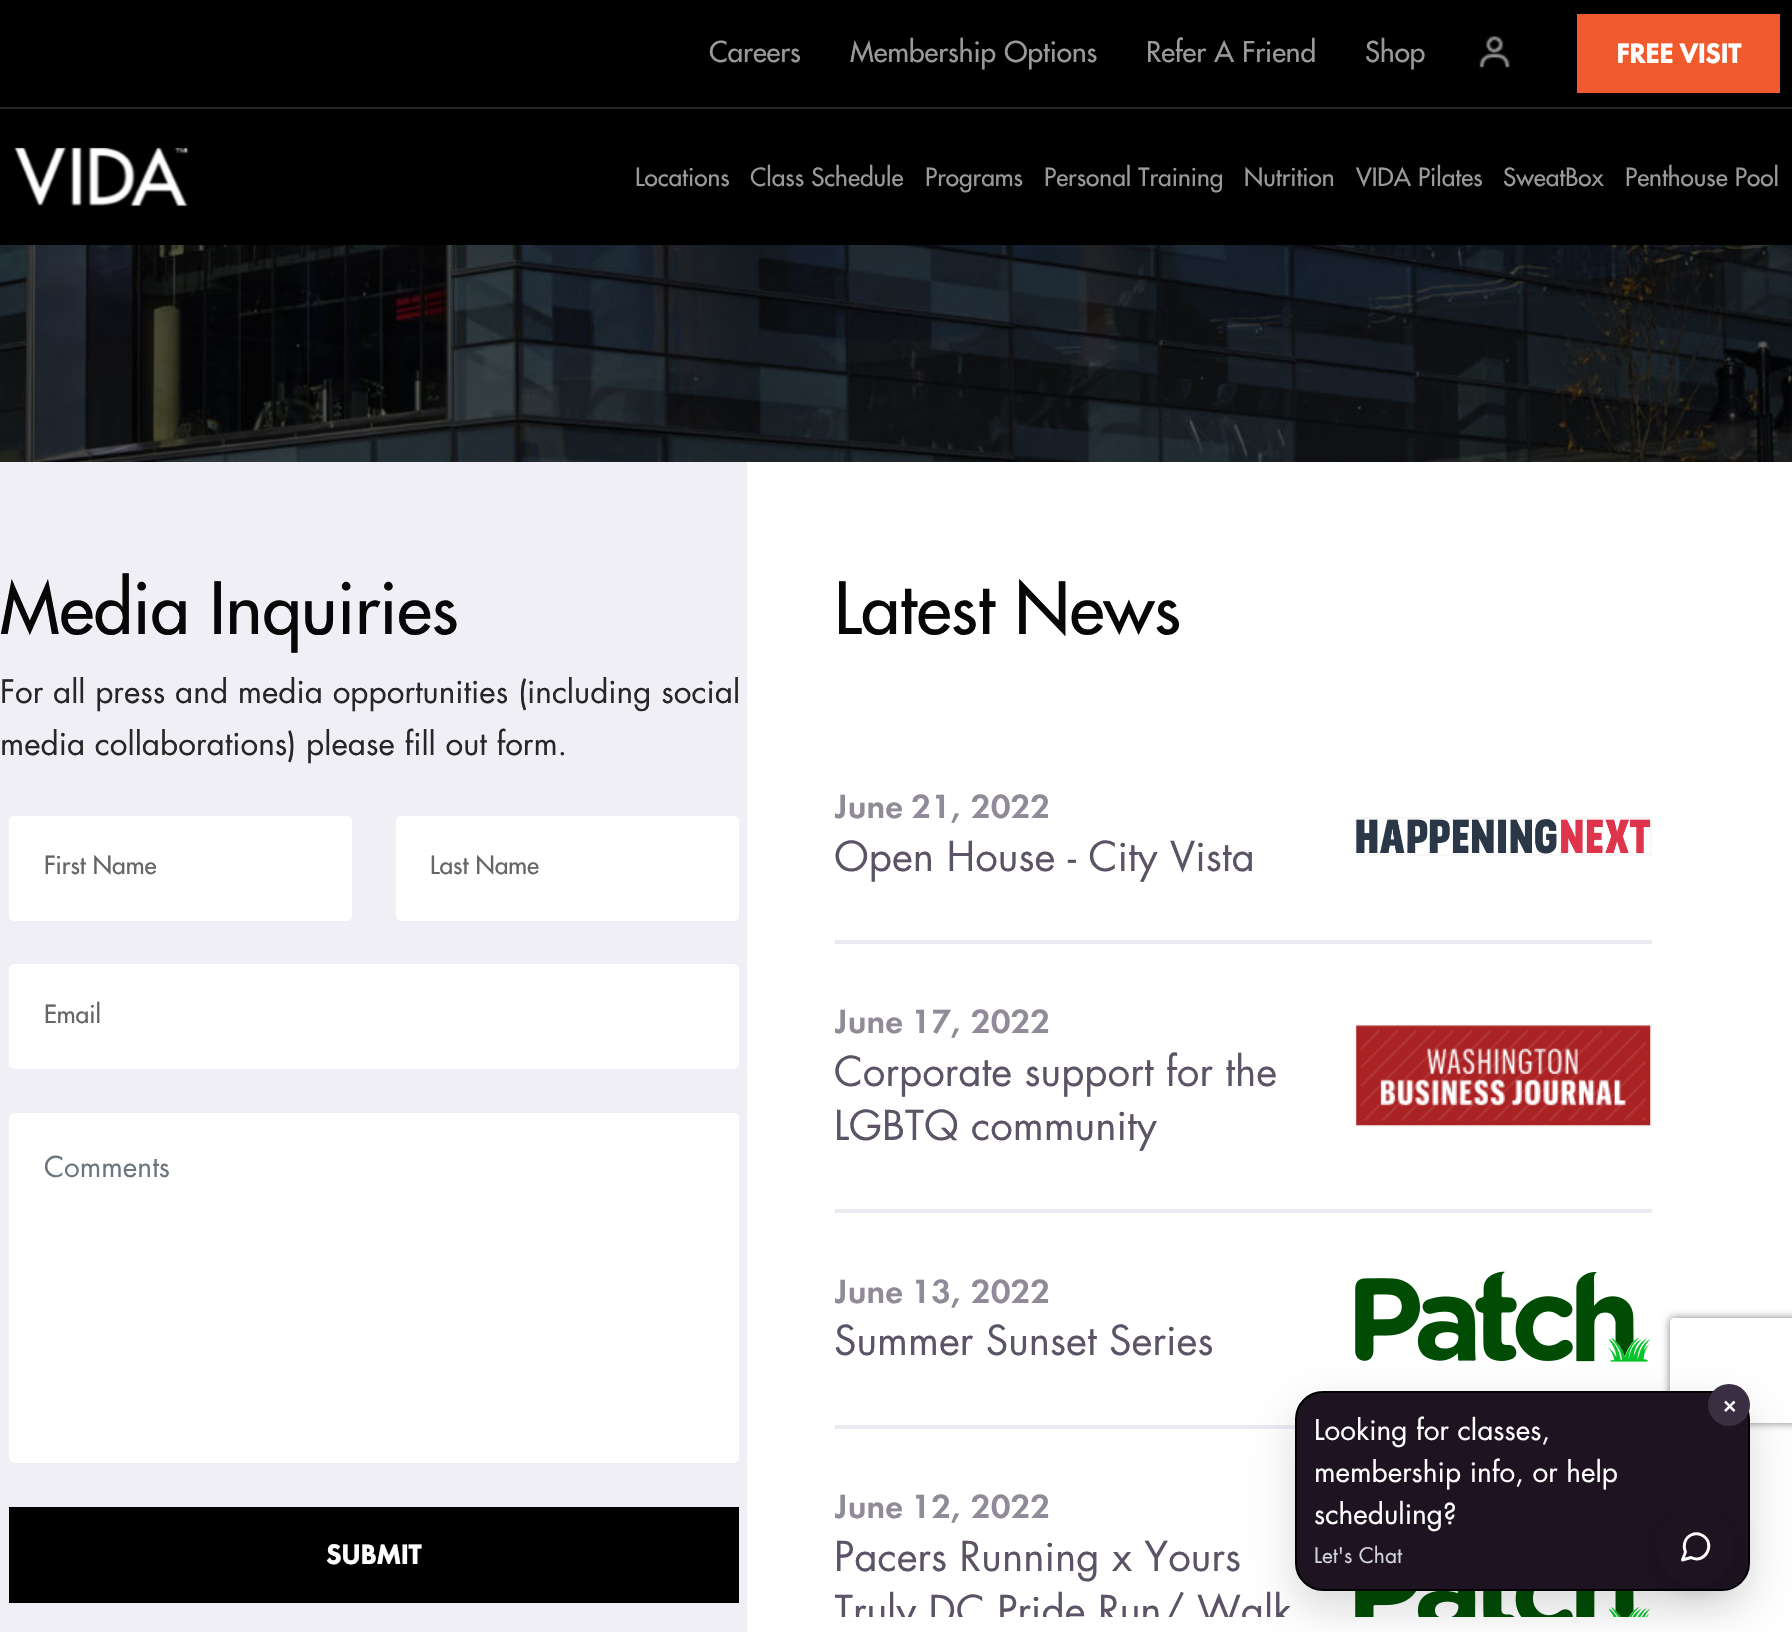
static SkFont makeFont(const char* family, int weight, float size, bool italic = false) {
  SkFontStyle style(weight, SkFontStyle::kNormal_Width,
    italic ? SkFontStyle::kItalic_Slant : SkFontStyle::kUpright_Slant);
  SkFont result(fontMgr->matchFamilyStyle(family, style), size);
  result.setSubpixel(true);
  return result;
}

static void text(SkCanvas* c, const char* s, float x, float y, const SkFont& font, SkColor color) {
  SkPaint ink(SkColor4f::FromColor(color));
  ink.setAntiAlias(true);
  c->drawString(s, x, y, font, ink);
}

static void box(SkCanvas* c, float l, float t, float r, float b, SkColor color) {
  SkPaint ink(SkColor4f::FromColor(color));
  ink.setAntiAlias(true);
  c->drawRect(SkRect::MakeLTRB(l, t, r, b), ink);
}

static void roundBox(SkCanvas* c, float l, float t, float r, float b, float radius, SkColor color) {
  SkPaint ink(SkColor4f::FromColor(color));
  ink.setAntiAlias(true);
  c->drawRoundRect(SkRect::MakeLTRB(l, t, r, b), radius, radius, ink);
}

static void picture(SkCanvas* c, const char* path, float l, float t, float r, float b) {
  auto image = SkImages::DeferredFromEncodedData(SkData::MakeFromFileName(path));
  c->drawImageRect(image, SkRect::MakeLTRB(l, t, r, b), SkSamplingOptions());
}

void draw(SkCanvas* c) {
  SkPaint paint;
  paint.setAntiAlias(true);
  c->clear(0xffffffff);
  box(c, 0, 0, 1792, 245, 0xff000000);
  box(c, 0, 107, 1792, 109, 0xff252525);
  SkFont face1 = makeFont("Futura", 500, 28);
  text(c, "Careers", 709, 62, face1, 0xff999999);
  text(c, "Membership Options", 850, 62, face1, 0xff999999);
  text(c, "Refer A Friend", 1146, 62, face1, 0xff999999);
  text(c, "Shop", 1365, 62, face1, 0xff999999);
  picture(c, "img_01.png", 1479, 36, 1511, 69);
  box(c, 1577, 14, 1780, 93, 0xfff15a2c);
  SkFont face2 = makeFont("Futura PT", 700, 28);
  text(c, "FREE VISIT", 1616, 63, face2, 0xffffffff);
  picture(c, "img_02.png", 14, 147, 189, 207);
  SkFont face3 = makeFont("Futura", 500, 24.5f);
  text(c, "Locations", 635, 186, face3, 0xff999999);
  text(c, "Class Schedule", 750, 186, face3, 0xff999999);
  text(c, "Programs", 925, 186, face3, 0xff999999);
  text(c, "Personal Training", 1044, 186, face3, 0xff999999);
  text(c, "Nutrition", 1244, 186, face3, 0xff999999);
  text(c, "VIDA Pilates", 1356, 186, face3, 0xff999999);
  text(c, "SweatBox", 1503, 186, face3, 0xff999999);
  text(c, "Penthouse Pool", 1625, 186, face3, 0xff999999);
  picture(c, "img_03.png", 0, 245, 1792, 462);
  box(c, 0, 462, 747, 1632, 0xfff1eff6);
  SkFont face4 = makeFont("Futura", 500, 70);
  text(c, "Media Inquiries", 0, 634, face4, 0xff070707);
  SkFont face5 = makeFont("Futura", 400, 31.5f);
  text(c, "For all press and media opportunities (including social", 0, 703, face5, 0xff272727);
  text(c, "media collaborations) please fill out form.", 0, 755, face5, 0xff272727);
  roundBox(c, 9, 816, 352, 921, 5, 0xffffffff);
  text(c, "First Name", 44, 874, face3, 0xff666666);
  roundBox(c, 396, 816, 739, 921, 5, 0xffffffff);
  text(c, "Last Name", 430, 874, face3, 0xff666666);
  roundBox(c, 9, 964, 739, 1069, 5, 0xffffffff);
  text(c, "Email", 44, 1023, face3, 0xff666666);
  roundBox(c, 9, 1113, 739, 1463, 5, 0xffffffff);
  SkFont face6 = makeFont("Futura", 400, 28);
  text(c, "Comments", 44, 1177, face6, 0xff6c757d);
  box(c, 9, 1507, 739, 1603, 0xff000000);
  text(c, "SUBMIT", 326, 1564, face2, 0xffffffff);
  text(c, "Latest News", 834, 634, face4, 0xff070707);
  box(c, 835, 940, 1652, 944, 0xffece9f2);
  c->save();
  c->clipRect(SkRect::MakeLTRB(835, 728, 1652, 1617));
  SkFont face7 = makeFont("Futura PT", 500, 35);
  text(c, "June 21, 2022", 834, 818, face7, 0xff918b99);
  c->restore();
  SkFont face8 = makeFont("Futura", 400, 40.25f);
  text(c, "Open House - City Vista", 834, 871, face8, 0xff5c5366);
  paint.setStyle(SkPaint::kStroke_Style);
  paint.setStrokeWidth(2);
  paint.setColor(0xfff7f7f7);
  c->drawRect(SkRect::MakeLTRB(1356, 818, 1651, 855), paint);
  picture(c, "img_04.png", 1356, 819, 1651, 854);
  box(c, 835, 1209, 1652, 1213, 0xffece9f2);
  c->save();
  c->clipRect(SkRect::MakeLTRB(835, 728, 1652, 1617));
  text(c, "June 17, 2022", 834, 1033, face7, 0xff918b99);
  c->restore();
  text(c, "Corporate support for the", 834, 1086, face8, 0xff5c5366);
  text(c, "LGBTQ community", 834, 1140, face8, 0xff5c5366);
  c->drawRect(SkRect::MakeLTRB(1356, 1025, 1651, 1126), paint);
  picture(c, "img_05.png", 1356, 1025, 1651, 1126);
  box(c, 835, 1425, 1295, 1429, 0xffece9f2);
  c->save();
  c->clipRect(SkRect::MakeLTRB(835, 728, 1652, 1617));
  text(c, "June 13, 2022", 834, 1303, face7, 0xff918b99);
  c->restore();
  text(c, "Summer Sunset Series", 834, 1355, face8, 0xff5c5366);
  picture(c, "img_06.png", 1355, 1271, 1651, 1362);
  c->save();
  c->clipRect(SkRect::MakeLTRB(835, 728, 1652, 1617));
  text(c, "June 12, 2022", 834, 1518, face7, 0xff918b99);
  c->restore();
  text(c, "Pacers Running x Yours", 834, 1571, face8, 0xff5c5366);
  c->save();
  c->clipRect(SkRect::MakeLTRB(835, 728, 1652, 1617));
  text(c, "Truly DC Pride Run/ Walk", 834, 1625, face8, 0xff5c5366);
  c->restore();
  picture(c, "img_07.png", 1355, 1591, 1651, 1617);
  c->save();
  c->clipPath(SkPathBuilder(SkPathFillType::kEvenOdd).moveTo(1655, 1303).lineTo(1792, 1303).lineTo(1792, 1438).lineTo(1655, 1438).close().moveTo(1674, 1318).lineTo(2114, 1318).cubicTo(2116, 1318, 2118, 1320, 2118, 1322).lineTo(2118, 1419).cubicTo(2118, 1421, 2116, 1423, 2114, 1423).lineTo(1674, 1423).cubicTo(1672, 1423, 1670, 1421, 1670, 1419).lineTo(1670, 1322).cubicTo(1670, 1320, 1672, 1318, 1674, 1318).close().detach(), true);
  paint.setStyle(SkPaint::kFill_Style);
  paint.setColor(0xff808080);
  paint.setMaskFilter(SkMaskFilter::MakeBlur(kNormal_SkBlurStyle, 4.5f));
  c->drawRoundRect(SkRect::MakeLTRB(1670, 1318, 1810, 1423), 4, 4, paint);
  paint.setMaskFilter(nullptr);
  c->restore();
  paint.setColor(0x26000000);
  paint.setMaskFilter(SkMaskFilter::MakeBlur(kNormal_SkBlurStyle, 22));
  c->drawRoundRect(SkRect::MakeLTRB(1295, 1409, 1750, 1608), 28, 28, paint);
  paint.setMaskFilter(nullptr);
  paint.setColor(0xff1d1321);
  c->drawRoundRect(SkRect::MakeLTRB(1296, 1392, 1749, 1590), 27, 27, paint);
  paint.setStyle(SkPaint::kStroke_Style);
  paint.setColor(0xff000000);
  c->drawRoundRect(SkRect::MakeLTRB(1296, 1392, 1749, 1590), 27, 27, paint);
  paint.setStyle(SkPaint::kFill_Style);
  paint.setColor(0xff3a2f42);
  c->drawCircle(1729, 1405, 21, paint);
  SkFont face9 = makeFont("Futura", 700, 21);
  text(c, "×", 1723, 1412, face9, 0xffffffff);
  text(c, "Looking for classes,", 1314, 1440, face6, 0xffffffff);
  text(c, "membership info, or help", 1314, 1482, face6, 0xffffffff);
  text(c, "scheduling?", 1314, 1524, face6, 0xffffffff);
  paint.setColor(0x26000000);
  paint.setMaskFilter(SkMaskFilter::MakeBlur(kNormal_SkBlurStyle, 10.5f));
  c->drawRoundRect(SkRect::MakeLTRB(1657, 1516, 1734, 1593), 38.5f, 38.5f, paint);
  paint.setMaskFilter(nullptr);
  paint.setColor(0xff1d1321);
  c->drawCircle(1695.5f, 1547.5f, 38.5f, paint);
  paint.setStyle(SkPaint::kStroke_Style);
  paint.setStrokeWidth(2.9f);
  paint.setStrokeCap(SkPaint::kRound_Cap);
  paint.setStrokeJoin(SkPaint::kRound_Join);
  paint.setColor(0xffffffff);
  c->drawPath(SkPathBuilder().moveTo(1682.5f, 1560).lineTo(1685.5f, 1552).cubicTo(1682.5f, 1545.5f, 1685, 1538, 1691, 1535).cubicTo(1694.5f, 1533.5f, 1698.5f, 1533.5f, 1701.5f, 1535).cubicTo(1716.5f, 1542, 1706, 1565, 1691, 1557.5f).close().detach(), paint);
  SkFont face10 = makeFont("Futura", 400, 21);
  text(c, "Let's Chat", 1314, 1563, face10, 0xffd1d5db);
}
